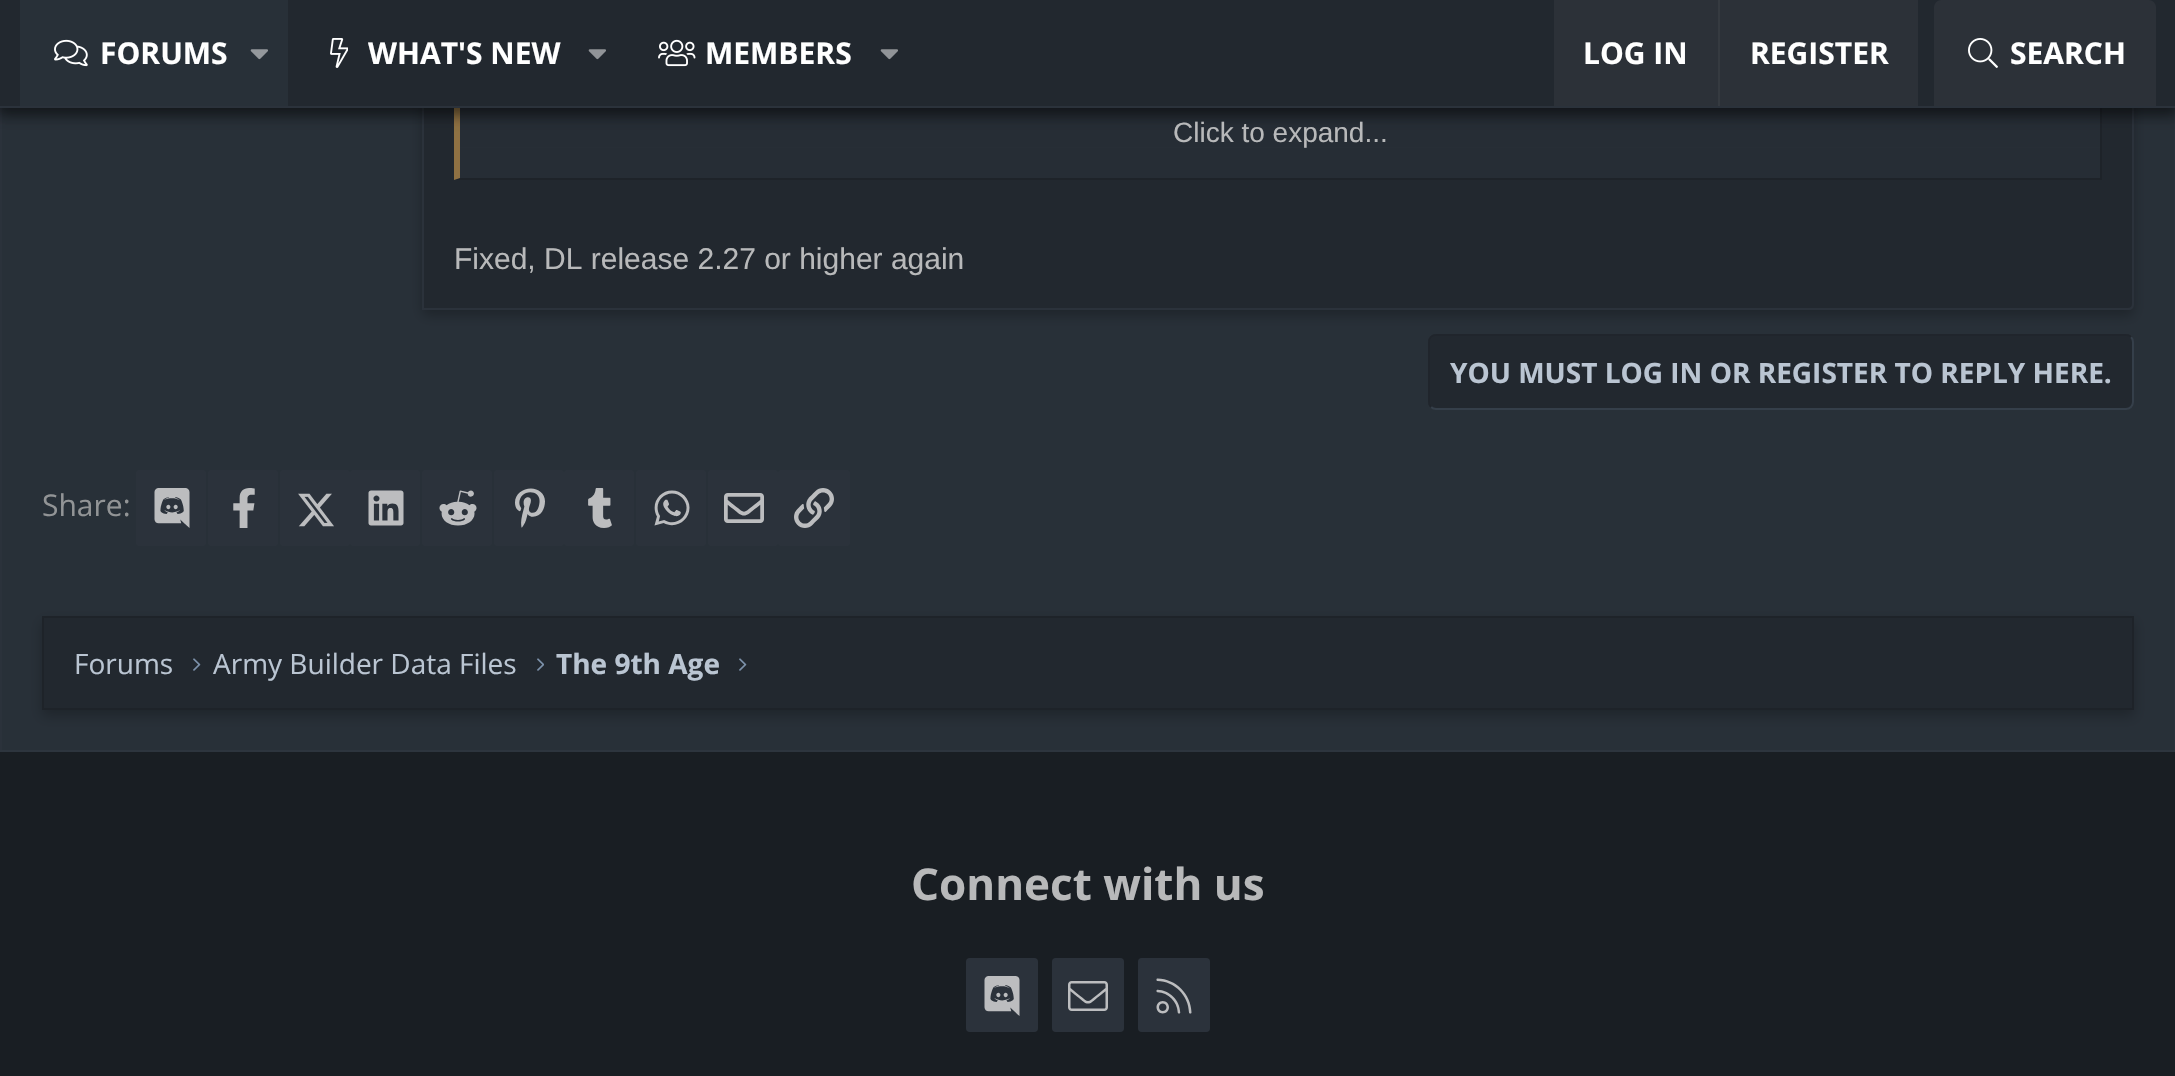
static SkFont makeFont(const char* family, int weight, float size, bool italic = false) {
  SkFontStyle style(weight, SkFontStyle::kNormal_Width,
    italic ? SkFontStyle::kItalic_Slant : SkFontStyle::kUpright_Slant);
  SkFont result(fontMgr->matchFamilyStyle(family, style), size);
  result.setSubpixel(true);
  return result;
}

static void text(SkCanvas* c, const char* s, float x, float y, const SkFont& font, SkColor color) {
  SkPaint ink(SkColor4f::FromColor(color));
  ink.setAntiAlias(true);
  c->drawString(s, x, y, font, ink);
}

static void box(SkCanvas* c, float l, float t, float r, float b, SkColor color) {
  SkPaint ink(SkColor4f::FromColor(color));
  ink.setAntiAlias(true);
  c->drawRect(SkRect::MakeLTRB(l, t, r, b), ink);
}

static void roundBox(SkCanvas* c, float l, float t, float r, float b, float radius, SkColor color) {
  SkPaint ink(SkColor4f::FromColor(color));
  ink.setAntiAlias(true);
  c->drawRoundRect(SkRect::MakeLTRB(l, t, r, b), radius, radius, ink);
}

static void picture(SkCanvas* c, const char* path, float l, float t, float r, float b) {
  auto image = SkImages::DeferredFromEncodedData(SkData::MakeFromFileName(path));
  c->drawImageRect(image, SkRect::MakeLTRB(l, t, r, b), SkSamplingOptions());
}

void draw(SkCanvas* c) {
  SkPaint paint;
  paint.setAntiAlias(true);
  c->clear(0xff283038);
  box(c, 2174, 108, 2175, 750, 0xff2b323b);
  box(c, 0, 108, 2, 750, 0xff2b323b);
  roundBox(c, 1428, 334, 2134, 410, 8, 0xff22282f);
  paint.setStyle(SkPaint::kStroke_Style);
  paint.setStrokeWidth(2);
  paint.setColor(0xff353f4a);
  c->drawPath(SkPathBuilder().moveTo(2131, 337).cubicTo(2132.5f, 338.5f, 2133, 340, 2133, 342).lineTo(2133, 402).cubicTo(2133, 404, 2132.5f, 405.5f, 2131, 407).cubicTo(2129.5f, 408.5f, 2128, 409, 2126, 409).lineTo(1436, 409).cubicTo(1434, 409, 1432.5f, 408.5f, 1431, 407).detach(), paint);
  paint.setColor(0xff20252c);
  c->drawPath(SkPathBuilder().moveTo(1431, 407).cubicTo(1429.5f, 405.5f, 1429, 404, 1429, 402).lineTo(1429, 342).cubicTo(1429, 340, 1429.5f, 338.5f, 1431, 337).cubicTo(1432.5f, 335.5f, 1434, 335, 1436, 335).lineTo(2126, 335).cubicTo(2128, 335, 2129.5f, 335.5f, 2131, 337).detach(), paint);
  paint.setStyle(SkPaint::kFill_Style);
  paint.setColor(0x3b000000);
  paint.setMaskFilter(SkMaskFilter::MakeBlur(kNormal_SkBlurStyle, 6));
  c->drawRoundRect(SkRect::MakeLTRB(422, -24, 2134, 316), 6, 6, paint);
  paint.setMaskFilter(nullptr);
  paint.setColor(0xff22282f);
  c->drawPath(SkPathBuilder().moveTo(423, -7).lineTo(2128, -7).cubicTo(2131, -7, 2133, -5, 2133, -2).lineTo(2133, 304).cubicTo(2133, 307, 2131, 309, 2128, 309).lineTo(423, 309).close().detach(), paint);
  paint.setStyle(SkPaint::kStroke_Style);
  paint.setColor(0xff2b323b);
  c->drawPath(SkPathBuilder().moveTo(423, -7).lineTo(2128, -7).cubicTo(2131, -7, 2133, -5, 2133, -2).lineTo(2133, 304).cubicTo(2133, 307, 2131, 309, 2128, 309).lineTo(423, 309).close().detach(), paint);
  box(c, 460, 108, 2100, 147, 0xff262d35);
  box(c, 2100, 108, 2102, 180, 0xff1e2329);
  paint.setStyle(SkPaint::kFill_Style);
  paint.setColor(0xff1e2329);
  c->drawPath(SkPathBuilder().moveTo(2102, 180).lineTo(454, 180).lineTo(460, 178).lineTo(2100, 178).close().detach(), paint);
  paint.setColor(0xff8f7143);
  c->drawPath(SkPathBuilder().moveTo(454, 180).lineTo(454, -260).lineTo(460, -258).lineTo(460, 178).close().detach(), paint);
  paint.setColor(0x4d000000);
  paint.setMaskFilter(SkMaskFilter::MakeBlur(kNormal_SkBlurStyle, 8));
  c->drawRect(SkRect::MakeLTRB(-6, -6, 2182, 114), paint);
  paint.setMaskFilter(nullptr);
  paint.setColor(0x3b000000);
  paint.setMaskFilter(SkMaskFilter::MakeBlur(kNormal_SkBlurStyle, 6));
  c->drawRect(SkRect::MakeLTRB(0, 6, 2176, 114), paint);
  paint.setMaskFilter(nullptr);
  paint.setColor(0x29000000);
  paint.setMaskFilter(SkMaskFilter::MakeBlur(kNormal_SkBlurStyle, 6));
  c->drawRect(SkRect::MakeLTRB(0, 6, 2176, 114), paint);
  paint.setMaskFilter(nullptr);
  box(c, 0, 0, 2175, 106, 0xff22282f);
  box(c, 0, 106, 2175, 108, 0xff2b323b);
  box(c, 20, 0, 288, 106, 0xff283038);
  picture(c, "img_01.png", 54, 39, 88, 67);
  SkFont face1 = makeFont("Open Sans", 700, 30);
  text(c, "FORUMS", 100, 64, face1, 0xffffffff);
  picture(c, "img_02.png", 250, 49, 268, 60);
  picture(c, "img_03.png", 330, 38, 348, 68);
  text(c, "WHAT'S NEW", 368, 64, face1, 0xffffffff);
  picture(c, "img_04.png", 588, 49, 606, 60);
  picture(c, "img_05.png", 658, 39, 696, 67);
  text(c, "MEMBERS", 705, 64, face1, 0xffffffff);
  picture(c, "img_04.png", 880, 49, 898, 60);
  box(c, 1554, 0, 1918, 106, 0xff2c3138);
  text(c, "LOG IN", 1583, 64, face1, 0xffffffff);
  box(c, 1718, 0, 1720, 106, 0xff353a40);
  text(c, "REGISTER", 1750, 64, face1, 0xffffffff);
  paint.setColor(0xff2c3138);
  c->drawPath(SkPathBuilder().moveTo(1942, 0).lineTo(2148, 0).cubicTo(2152.5f, 0, 2156, 3.5f, 2156, 8).lineTo(2156, 106).lineTo(1934, 106).lineTo(1934, 8).cubicTo(1934, 3.5f, 1937.5f, 0, 1942, 0).close().detach(), paint);
  picture(c, "img_06.png", 1968, 38, 1998, 68);
  text(c, "SEARCH", 2010, 64, face1, 0xffffffff);
  {
    const SkColor colors[] = {0x00262d35, 0xff262d35};
    const float stops[] = {0, 0.8f};
    const SkPoint ends[] = {{1280, 28}, {1280, 178}};
    paint.setShader(SkGradientShader::MakeLinear(ends, colors, stops, 2, SkTileMode::kClamp));
    paint.setAlpha(255);
  }
  c->drawRect(SkRect::MakeLTRB(460, 147, 2100, 178), paint);
  SkFont face2 = makeFont("Liberation Sans", 400, 28);
  text(c, "Click to expand...", 1173, 142, face2, 0xffb8b9ba);
  SkFont face3 = makeFont("Liberation Sans", 400, 30);
  text(c, "Fixed, DL release 2.27 or higher again", 454, 269, face3, 0xffb8b9ba);
  SkFont face4 = makeFont("Open Sans", 700, 28);
  text(c, "YOU MUST LOG IN OR REGISTER TO REPLY HERE.", 1450, 383, face4, 0xffbac5d2);
  SkFont face5 = makeFont("Open Sans", 400, 30);
  text(c, "Share:", 42, 516, face5, 0xff929496);
  roundBox(c, 136, 470, 206, 546, 4, 0xff2b323b);
  picture(c, "img_07.png", 154, 488, 190, 528);
  roundBox(c, 208, 470, 278, 546, 4, 0xff2b323b);
  picture(c, "img_08.png", 233, 488, 255, 528);
  roundBox(c, 280, 470, 350, 546, 4, 0xff2b323b);
  picture(c, "img_09.png", 298, 493, 334, 527);
  roundBox(c, 350, 470, 420, 546, 4, 0xff2b323b);
  picture(c, "img_10.png", 368, 490, 404, 526);
  roundBox(c, 422, 470, 492, 546, 4, 0xff2b323b);
  picture(c, "img_11.png", 439, 490, 477, 526);
  roundBox(c, 494, 470, 564, 546, 4, 0xff2b323b);
  picture(c, "img_12.png", 515, 488, 545, 528);
  roundBox(c, 564, 470, 634, 546, 4, 0xff2b323b);
  picture(c, "img_13.png", 588, 488, 612, 528);
  roundBox(c, 636, 470, 706, 546, 4, 0xff2b323b);
  picture(c, "img_14.png", 654, 490, 690, 526);
  roundBox(c, 708, 470, 778, 546, 4, 0xff2b323b);
  picture(c, "img_15.png", 724, 493, 764, 523);
  roundBox(c, 778, 470, 850, 546, 4, 0xff2b323b);
  picture(c, "img_16.png", 794, 488, 834, 528);
  paint.setShader(nullptr);
  paint.setColor(0x3b000000);
  paint.setMaskFilter(SkMaskFilter::MakeBlur(kNormal_SkBlurStyle, 6));
  c->drawRect(SkRect::MakeLTRB(42, 622, 2134, 716), paint);
  paint.setMaskFilter(nullptr);
  paint.setColor(0xff22282f);
  c->drawRect(SkRect::MakeLTRB(43, 617, 2133, 709), paint);
  paint.setStyle(SkPaint::kStroke_Style);
  paint.setColor(0xff1e2329);
  c->drawRect(SkRect::MakeLTRB(43, 617, 2133, 709), paint);
  SkFont face6 = makeFont("Open Sans", 400, 28);
  text(c, "Forums", 74, 674, face6, 0xffbac5d2);
  picture(c, "img_17.png", 193, 658, 201, 671);
  text(c, "Army Builder Data Files", 213, 674, face6, 0xffbac5d2);
  picture(c, "img_18.png", 537, 658, 544, 671);
  text(c, "The 9th Age", 556, 674, face4, 0xffbac5d2);
  picture(c, "img_17.png", 739, 658, 747, 671);
  box(c, 0, 752, 2175, 1076, 0xff191e23);
  box(c, 0, 750, 2175, 752, 0xff2d353e);
  SkFont face7 = makeFont("Open Sans", 700, 44);
  text(c, "Connect with us", 911, 900, face7, 0xffb8b9ba);
  roundBox(c, 966, 958, 1038, 1032, 4, 0xff2b323b);
  picture(c, "img_19.png", 984, 976, 1020, 1016);
  roundBox(c, 1052, 958, 1124, 1032, 4, 0xff2b323b);
  picture(c, "img_20.png", 1068, 981, 1108, 1011);
  roundBox(c, 1138, 958, 1210, 1032, 4, 0xff2b323b);
  picture(c, "img_21.png", 1156, 978, 1192, 1014);
}
